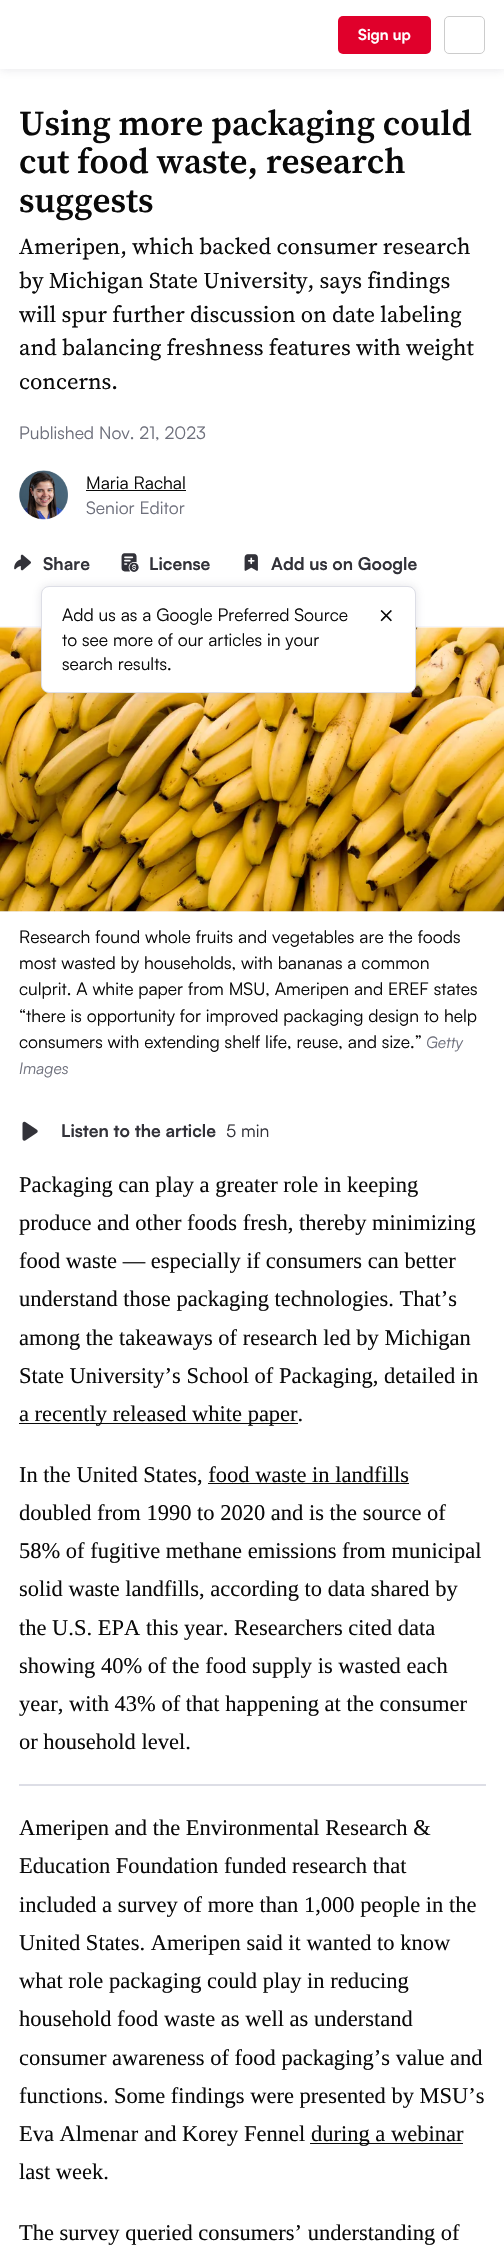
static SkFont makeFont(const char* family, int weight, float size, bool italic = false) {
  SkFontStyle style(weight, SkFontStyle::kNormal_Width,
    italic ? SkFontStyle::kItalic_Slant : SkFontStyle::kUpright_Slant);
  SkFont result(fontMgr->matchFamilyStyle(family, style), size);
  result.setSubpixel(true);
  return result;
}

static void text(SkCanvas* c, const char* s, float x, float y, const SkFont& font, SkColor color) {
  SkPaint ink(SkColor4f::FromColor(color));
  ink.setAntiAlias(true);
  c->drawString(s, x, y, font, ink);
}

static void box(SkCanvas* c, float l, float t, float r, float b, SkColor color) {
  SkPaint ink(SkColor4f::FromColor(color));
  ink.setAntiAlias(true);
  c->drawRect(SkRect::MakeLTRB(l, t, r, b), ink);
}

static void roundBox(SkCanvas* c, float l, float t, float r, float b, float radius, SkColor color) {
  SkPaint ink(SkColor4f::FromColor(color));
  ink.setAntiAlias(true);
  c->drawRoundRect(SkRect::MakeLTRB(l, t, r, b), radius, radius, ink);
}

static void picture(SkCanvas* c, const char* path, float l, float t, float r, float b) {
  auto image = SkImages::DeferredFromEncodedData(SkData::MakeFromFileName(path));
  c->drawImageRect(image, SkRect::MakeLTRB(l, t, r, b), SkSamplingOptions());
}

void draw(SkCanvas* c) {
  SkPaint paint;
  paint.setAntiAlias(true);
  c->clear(0xffffffff);
  paint.setColor(0x3378788c);
  paint.setMaskFilter(SkMaskFilter::MakeBlur(kNormal_SkBlurStyle, 5));
  c->drawRect(SkRect::MakeLTRB(0, 0, 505, 69), paint);
  paint.setMaskFilter(nullptr);
  box(c, 0, 0, 504, 69, 0xffffffff);
  roundBox(c, 338, 16, 431, 54, 5, 0xffe0002b);
  SkFont face1 = makeFont("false", 700, 15);
  text(c, "Sign up", 358, 40, face1, 0xffffffff);
  paint.setStyle(SkPaint::kStroke_Style);
  paint.setStrokeWidth(1);
  paint.setColor(0xffcccccc);
  c->drawRoundRect(SkRect::MakeLTRB(444.5f, 16.5f, 484.5f, 53.5f), 4.5f, 4.5f, paint);
  SkFont face2 = makeFont("Source Serif 4", 600, 35);
  text(c, "Using more packaging could", 19, 135, face2, 0xff0a0a0a);
  text(c, "cut food waste, research", 19, 173, face2, 0xff0a0a0a);
  text(c, "suggests", 19, 212, face2, 0xff0a0a0a);
  SkFont face3 = makeFont("Source Serif 4", 400, 22.5f);
  text(c, "Ameripen, which backed consumer research", 19, 254, face3, 0xff0a0a0a);
  text(c, "by Michigan State University, says findings", 19, 288, face3, 0xff0a0a0a);
  text(c, "will spur further discussion on date labeling", 19, 322, face3, 0xff0a0a0a);
  text(c, "and balancing freshness features with weight", 19, 355, face3, 0xff0a0a0a);
  text(c, "concerns.", 19, 389, face3, 0xff0a0a0a);
  SkFont face4 = makeFont("false", 400, 17.5f);
  text(c, "Published Nov. 21, 2023", 19, 439, face4, 0xff6e707c);
  picture(c, "img_01.png", 19, 470, 68, 520);
  text(c, "Maria Rachal", 86, 489, face4, 0xff0a0a0a);
  box(c, 86, 490, 186, 491, 0xff0a0a0a);
  text(c, "Senior Editor", 86, 514, face4, 0xff6e707c);
  picture(c, "img_02.png", 14, 554, 31, 571);
  SkFont face5 = makeFont("false", 700, 17.5f);
  text(c, "Share", 43, 570, face5, 0xff323239);
  picture(c, "img_03.png", 121, 553, 139, 572);
  text(c, "License", 149, 570, face5, 0xff323239);
  picture(c, "img_04.png", 244, 554, 258, 571);
  text(c, "Add us on Google", 271, 570, face5, 0xff323239);
  box(c, 0, 626, 504, 627, 0xfff5f5fa);
  box(c, 0, 911, 504, 912, 0xfff5f5fa);
  picture(c, "img_05.png", 0, 627, 504, 912);
  paint.setStyle(SkPaint::kFill_Style);
  paint.setColor(0x3378788c);
  paint.setMaskFilter(SkMaskFilter::MakeBlur(kNormal_SkBlurStyle, 5));
  c->drawRoundRect(SkRect::MakeLTRB(41, 586, 416, 693), 8, 8, paint);
  paint.setMaskFilter(nullptr);
  paint.setColor(0xffffffff);
  c->drawRoundRect(SkRect::MakeLTRB(41.5f, 586.5f, 415.5f, 692.5f), 7.5f, 7.5f, paint);
  paint.setStyle(SkPaint::kStroke_Style);
  paint.setColor(0xffdddee6);
  c->drawRoundRect(SkRect::MakeLTRB(41.5f, 586.5f, 415.5f, 692.5f), 7.5f, 7.5f, paint);
  text(c, "Add us as a Google Preferred Source", 62, 621, face4, 0xff0a0a0a);
  SkFont face6 = makeFont("false", 400, 25);
  text(c, "×", 378, 624, face6, 0xff0a0a0a);
  text(c, "to see more of our articles in your", 62, 646, face4, 0xff0a0a0a);
  text(c, "search results.", 62, 670, face4, 0xff0a0a0a);
  text(c, "Research found whole fruits and vegetables are the foods", 19, 943, face4, 0xff0a0a0a);
  text(c, "most wasted by households, with bananas a common", 19, 969, face4, 0xff0a0a0a);
  text(c, "culprit. A white paper from MSU, Ameripen and EREF states", 19, 995, face4, 0xff0a0a0a);
  text(c, "“there is opportunity for improved packaging design to help", 19, 1022, face4, 0xff0a0a0a);
  text(c, "consumers with extending shelf life, reuse, and size.”", 19, 1048, face4, 0xff0a0a0a);
  SkFont face7 = makeFont("false", 400, 16, true);
  text(c, "Getty", 426, 1048, face7, 0xff6e707c);
  text(c, "Images", 19, 1074, face7, 0xff6e707c);
  picture(c, "img_06.png", 22, 1121, 38, 1141);
  text(c, "Listen to the article", 61, 1137, face5, 0xff323239);
  text(c, "5 min", 226, 1137, face4, 0xff323239);
  SkFont face8 = makeFont("Liberation Serif", 400, 22.5f);
  text(c, "Packaging can play a greater role in keeping", 19, 1192, face8, 0xff0a0a0a);
  text(c, "produce and other foods fresh, thereby minimizing", 19, 1230, face8, 0xff0a0a0a);
  text(c, "food waste — especially if consumers can better", 19, 1268, face8, 0xff0a0a0a);
  text(c, "understand those packaging technologies. That’s", 19, 1306, face8, 0xff0a0a0a);
  text(c, "among the takeaways of research led by Michigan", 19, 1345, face8, 0xff0a0a0a);
  text(c, "State University’s School of Packaging, detailed in", 19, 1383, face8, 0xff0a0a0a);
  box(c, 19, 1423, 298, 1424, 0xff0a0a0a);
  text(c, "a recently released white paper.", 19, 1421, face8, 0xff0a0a0a);
  text(c, "In the United States, food waste in landfills", 19, 1482, face8, 0xff0a0a0a);
  box(c, 208, 1483, 409, 1484, 0xff0a0a0a);
  text(c, "doubled from 1990 to 2020 and is the source of", 19, 1520, face8, 0xff0a0a0a);
  text(c, "58% of fugitive methane emissions from municipal", 19, 1558, face8, 0xff0a0a0a);
  text(c, "solid waste landfills, according to data shared by", 19, 1596, face8, 0xff0a0a0a);
  text(c, "the U.S. EPA this year. Researchers cited data", 19, 1635, face8, 0xff0a0a0a);
  text(c, "showing 40% of the food supply is wasted each", 19, 1673, face8, 0xff0a0a0a);
  text(c, "year, with 43% of that happening at the consumer", 19, 1711, face8, 0xff0a0a0a);
  text(c, "or household level.", 19, 1749, face8, 0xff0a0a0a);
  box(c, 19, 1784, 486, 1786, 0xffdddee6);
  text(c, "Ameripen and the Environmental Research &", 19, 1835, face8, 0xff0a0a0a);
  text(c, "Education Foundation funded research that", 19, 1873, face8, 0xff0a0a0a);
  text(c, "included a survey of more than 1,000 people in the", 19, 1912, face8, 0xff0a0a0a);
  text(c, "United States. Ameripen said it wanted to know", 19, 1950, face8, 0xff0a0a0a);
  text(c, "what role packaging could play in reducing", 19, 1988, face8, 0xff0a0a0a);
  text(c, "household food waste as well as understand", 19, 2026, face8, 0xff0a0a0a);
  text(c, "consumer awareness of food packaging’s value and", 19, 2065, face8, 0xff0a0a0a);
  text(c, "functions. Some findings were presented by MSU’s", 19, 2103, face8, 0xff0a0a0a);
  text(c, "Eva Almenar and Korey Fennel", 19, 2141, face8, 0xff0a0a0a);
  box(c, 310, 2143, 463, 2144, 0xff0a0a0a);
  text(c, "during a webinar", 311, 2141, face8, 0xff0a0a0a);
  text(c, "last week.", 19, 2179, face8, 0xff0a0a0a);
  text(c, "The survey queried consumers’ understanding of", 19, 2240, face8, 0xff0a0a0a);
}
